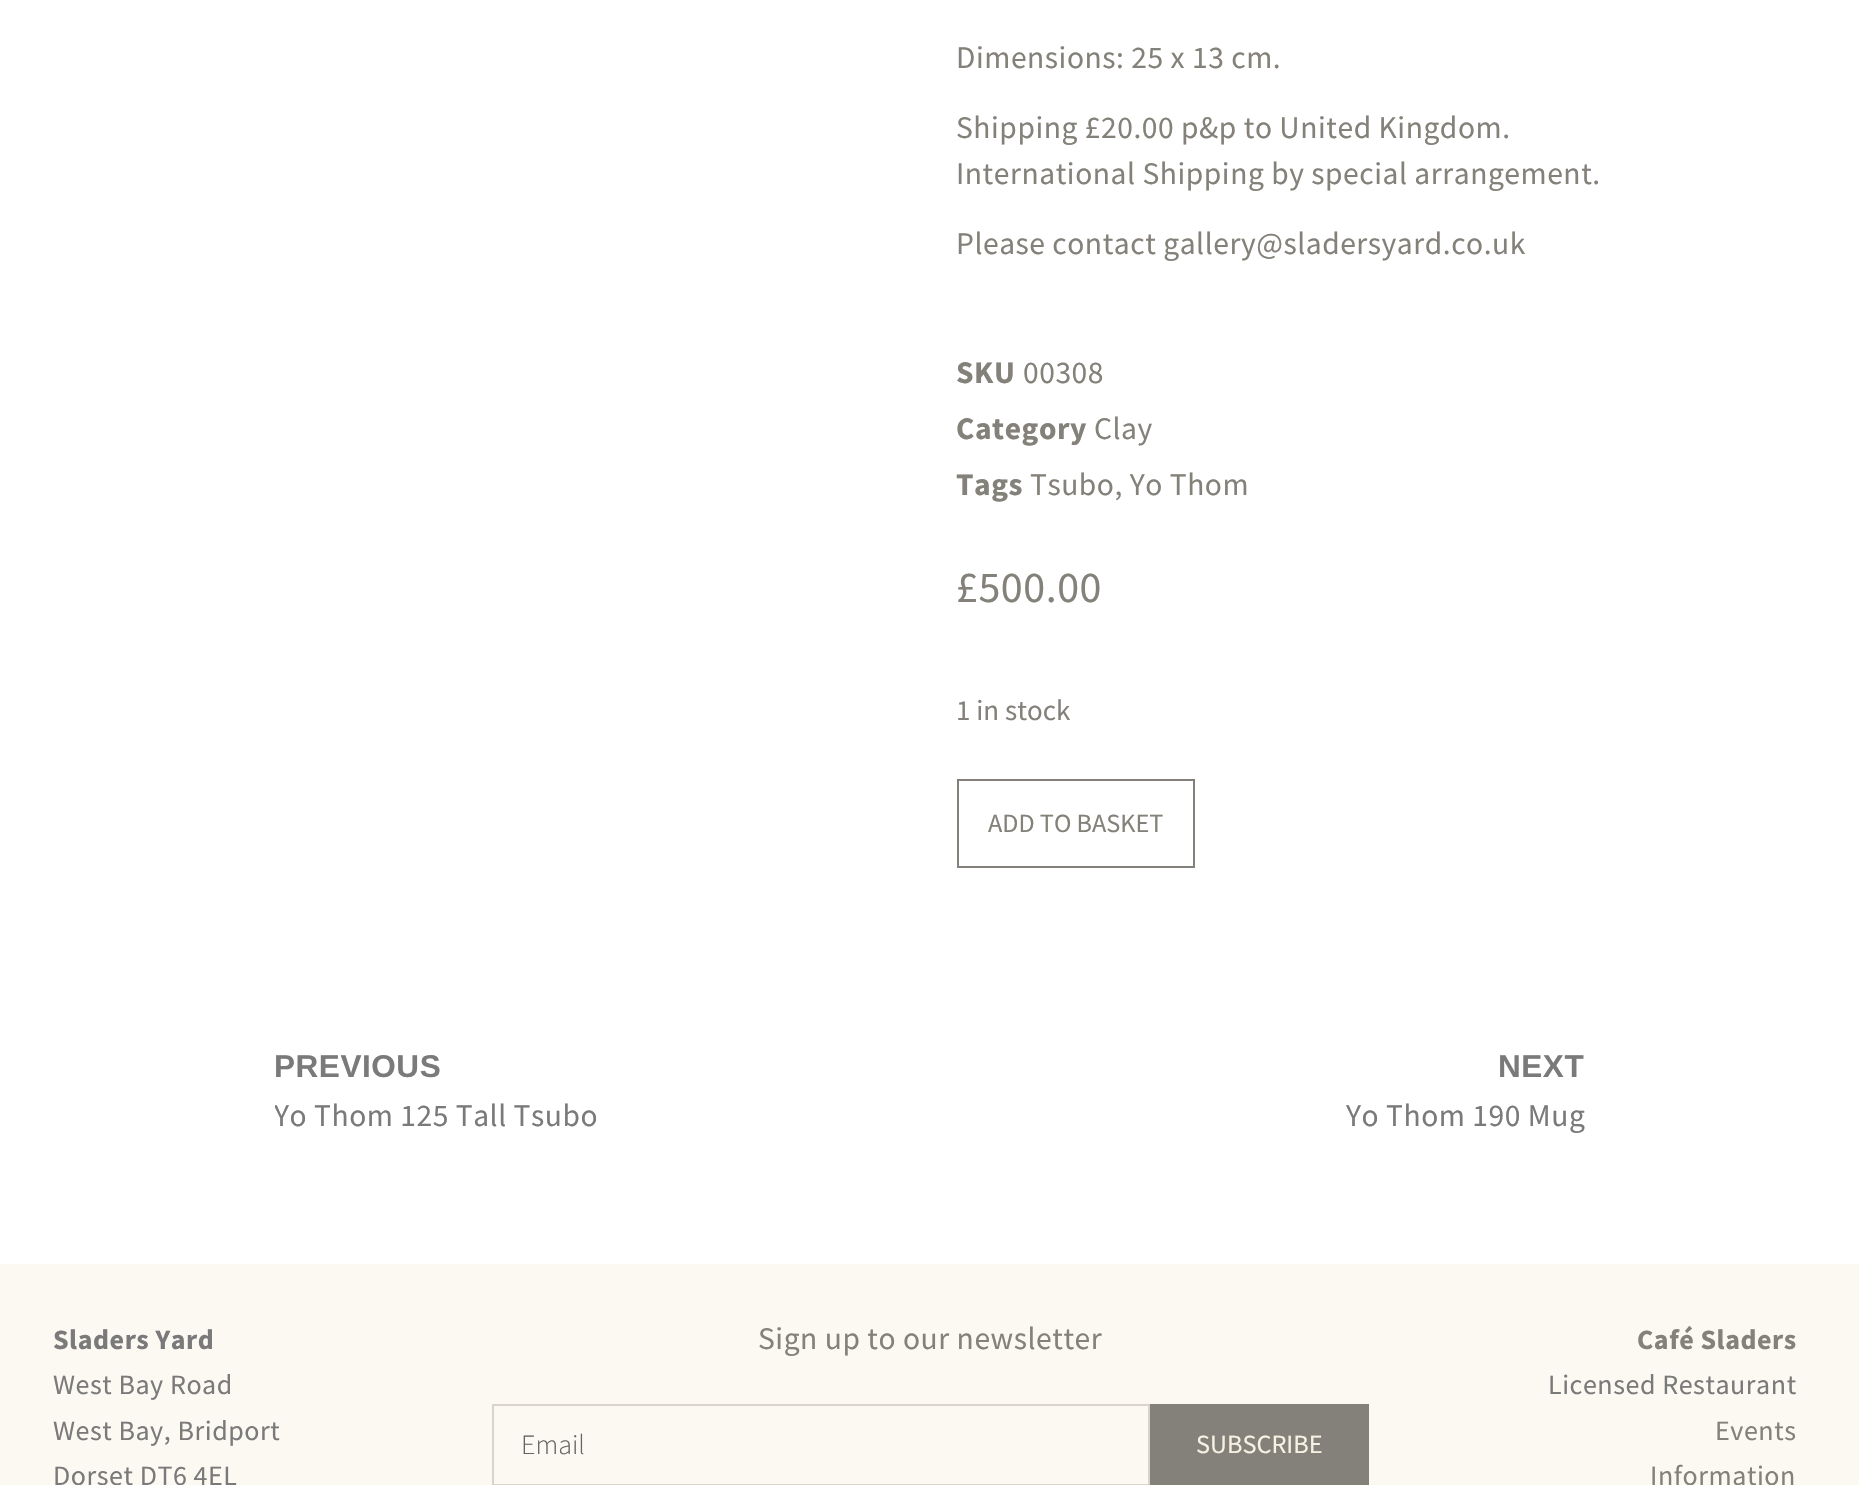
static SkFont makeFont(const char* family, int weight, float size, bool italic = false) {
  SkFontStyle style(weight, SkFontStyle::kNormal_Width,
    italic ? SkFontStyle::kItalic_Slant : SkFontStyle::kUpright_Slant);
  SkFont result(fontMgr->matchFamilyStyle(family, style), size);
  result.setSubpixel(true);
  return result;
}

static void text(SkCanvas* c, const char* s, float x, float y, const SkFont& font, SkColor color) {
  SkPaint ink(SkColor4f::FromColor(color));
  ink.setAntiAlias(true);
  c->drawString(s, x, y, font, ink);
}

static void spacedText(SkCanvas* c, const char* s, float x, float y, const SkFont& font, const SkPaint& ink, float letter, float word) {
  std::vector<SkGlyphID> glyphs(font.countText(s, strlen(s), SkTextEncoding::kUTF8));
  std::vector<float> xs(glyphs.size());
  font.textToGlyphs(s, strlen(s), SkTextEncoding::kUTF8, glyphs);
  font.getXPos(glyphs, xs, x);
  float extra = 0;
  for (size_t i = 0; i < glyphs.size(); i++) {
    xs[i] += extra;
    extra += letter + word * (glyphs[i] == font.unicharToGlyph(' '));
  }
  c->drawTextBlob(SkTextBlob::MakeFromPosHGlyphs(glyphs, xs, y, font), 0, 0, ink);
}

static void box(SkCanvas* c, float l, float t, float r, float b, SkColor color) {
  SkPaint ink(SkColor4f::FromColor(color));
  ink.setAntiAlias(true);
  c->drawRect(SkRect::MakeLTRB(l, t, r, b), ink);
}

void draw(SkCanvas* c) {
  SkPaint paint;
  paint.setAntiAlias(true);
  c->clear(0xffffffff);
  SkFont face1 = makeFont("Source Sans Pro", 400, 31.5f);
  paint.setColor(0xff84817a);
  spacedText(c, "Dimensions: 25 x 13 cm.", 956, 68, face1, paint, 0.55f, 0);
  spacedText(c, "Shipping £20.00 p&p to United Kingdom.", 956, 138, face1, paint, 0.55f, 0);
  spacedText(c, "International Shipping by special arrangement.", 956, 184, face1, paint, 0.55f, 0);
  spacedText(c, "Please contact gallery@sladersyard.co.uk", 956, 254, face1, paint, 0.55f, 0);
  SkFont face2 = makeFont("Source Sans Pro", 700, 31.5f);
  spacedText(c, "SKU", 956, 383, face2, paint, 0.55f, 0);
  spacedText(c, "00308", 1023, 383, face1, paint, 0.55f, 0);
  spacedText(c, "Category", 956, 439, face2, paint, 0.55f, 0);
  spacedText(c, "Clay", 1094, 439, face1, paint, 0.55f, 0);
  spacedText(c, "Tags", 956, 495, face2, paint, 0.55f, 0);
  spacedText(c, "Tsubo, Yo Thom", 1030, 495, face1, paint, 0.55f, 0);
  SkFont face3 = makeFont("Source Sans Pro", 400, 44);
  spacedText(c, "£500.00", 956, 602, face3, paint, 0.55f, 0);
  SkFont face4 = makeFont("Source Sans Pro", 400, 29);
  text(c, "1 in stock", 956, 720, face4, 0xff84817a);
  paint.setStyle(SkPaint::kStroke_Style);
  paint.setStrokeWidth(2);
  c->drawRect(SkRect::MakeLTRB(958, 780, 1194, 867), paint);
  SkFont face5 = makeFont("Source Sans Pro", 400, 26.25f);
  text(c, "ADD TO BASKET", 988, 832, face5, 0xff84817a);
  SkFont face6 = makeFont("Liberation Sans", 700, 31.5f);
  paint.setStyle(SkPaint::kFill_Style);
  paint.setColor(0xff7a7a7a);
  spacedText(c, "PREVIOUS", 274, 1077, face6, paint, 0.55f, 0);
  c->save();
  c->clipRect(SkRect::MakeLTRB(275, 1092, 597, 1141));
  spacedText(c, "Yo Thom 125 Tall Tsubo", 274, 1126, face1, paint, 0.55f, 0);
  c->restore();
  spacedText(c, "NEXT", 1498, 1077, face6, paint, 0.55f, 0);
  spacedText(c, "Yo Thom 190 Mug", 1346, 1126, face1, paint, 0.55f, 0);
  box(c, 0, 1264, 1859, 1485, 0xfffcf9f3);
  SkFont face7 = makeFont("Source Sans Pro", 700, 28);
  spacedText(c, "Sladers Yard", 53, 1349, face7, paint, 0.55f, 0);
  SkFont face8 = makeFont("Source Sans Pro", 400, 28);
  spacedText(c, "West Bay Road", 53, 1394, face8, paint, 0.55f, 0);
  spacedText(c, "West Bay, Bridport", 53, 1440, face8, paint, 0.55f, 0);
  spacedText(c, "Dorset DT6 4EL", 53, 1485, face8, paint, 0.55f, 0);
  paint.setColor(0xff84817a);
  spacedText(c, "Sign up to our newsletter", 758, 1349, face1, paint, 0.55f, 0);
  paint.setStyle(SkPaint::kStroke_Style);
  paint.setColor(0xffd8d4cb);
  c->drawRect(SkRect::MakeLTRB(493, 1405, 1149, 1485), paint);
  SkFont face9 = makeFont("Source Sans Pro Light", 300, 28);
  text(c, "Email", 521, 1454, face9, 0xff656461);
  box(c, 1150, 1404, 1369, 1485, 0xff84817a);
  text(c, "SUBSCRIBE", 1196, 1453, face5, 0xfff7f1e3);
  paint.setStyle(SkPaint::kFill_Style);
  paint.setColor(0xff84817a);
  spacedText(c, "Café Sladers", 1637, 1349, face7, paint, 0.55f, 0);
  paint.setColor(0xff7a7a7a);
  spacedText(c, "Licensed Restaurant", 1548, 1394, face8, paint, 0.55f, 0);
  paint.setColor(0xff84817a);
  spacedText(c, "Events", 1715, 1440, face8, paint, 0.55f, 0);
  spacedText(c, "Information", 1650, 1485, face8, paint, 0.55f, 0);
}
